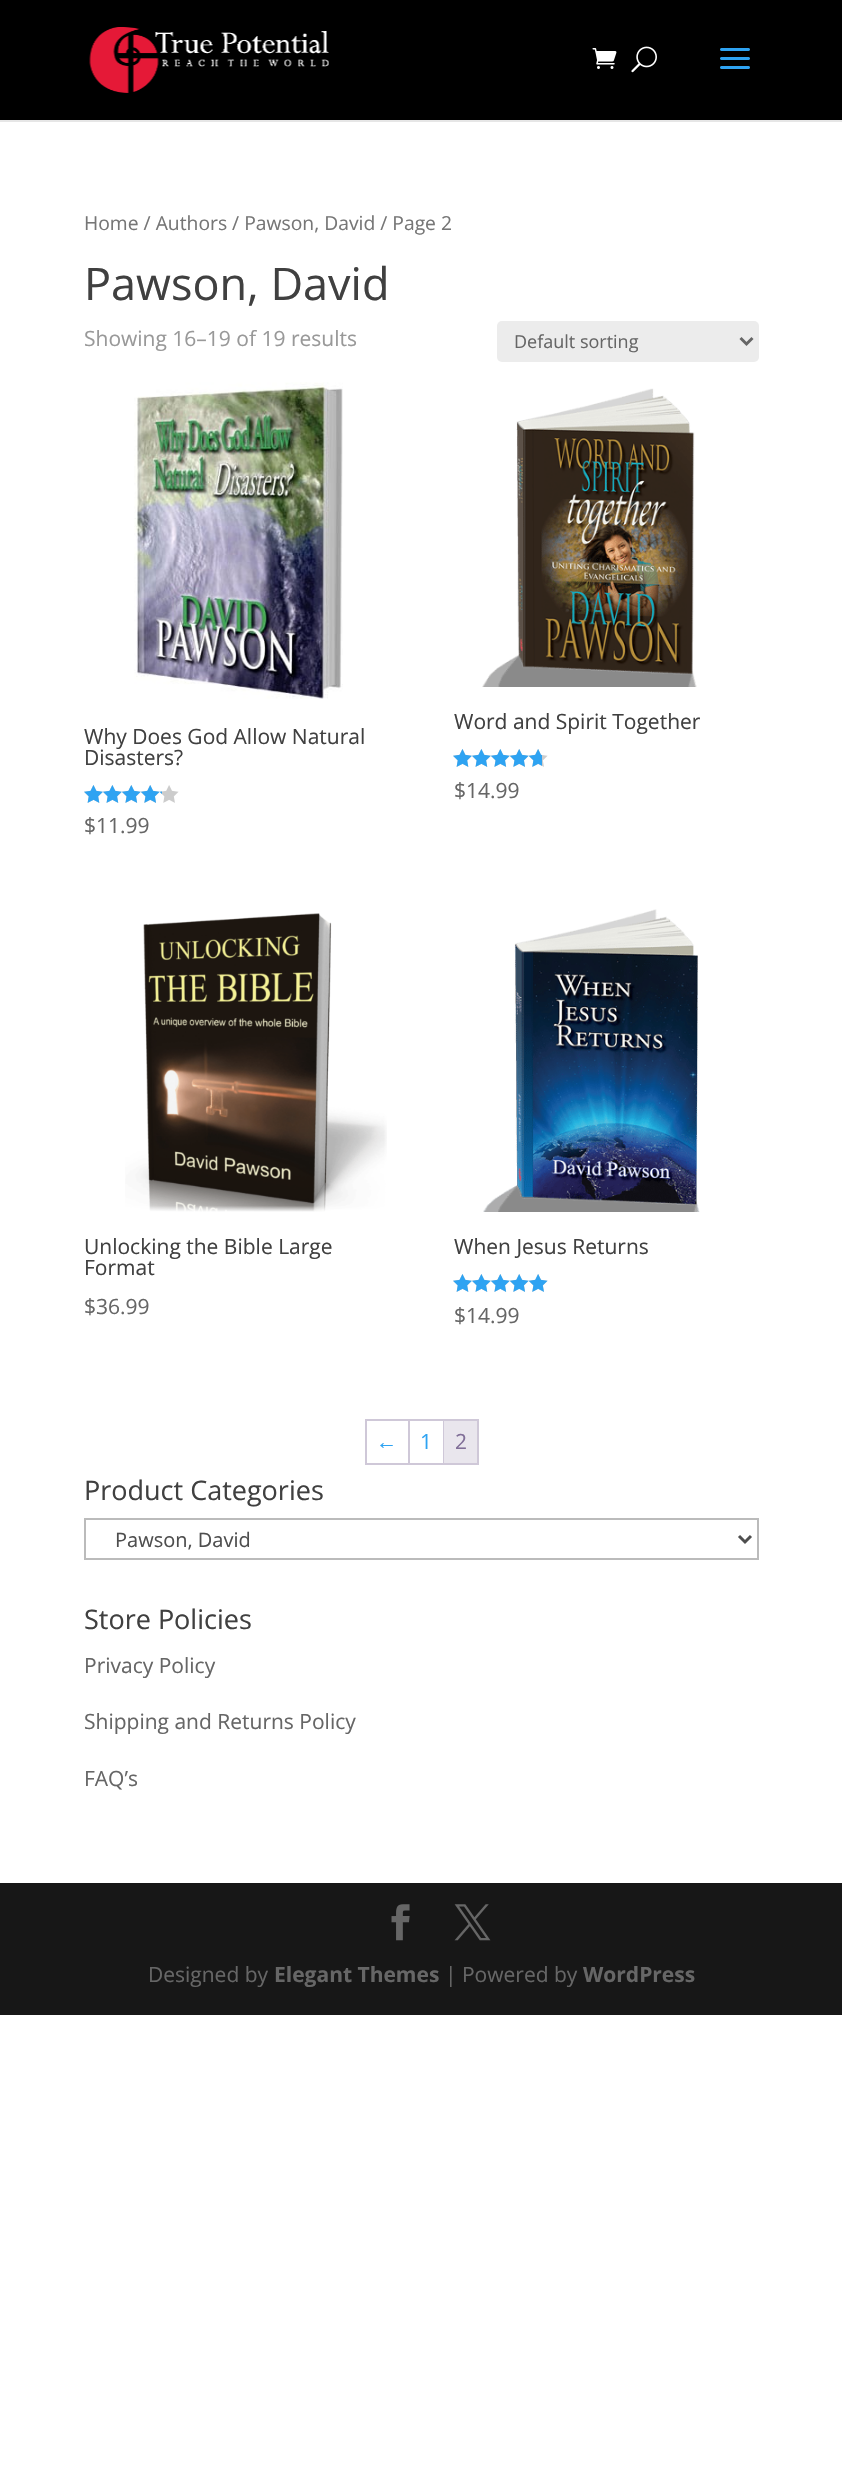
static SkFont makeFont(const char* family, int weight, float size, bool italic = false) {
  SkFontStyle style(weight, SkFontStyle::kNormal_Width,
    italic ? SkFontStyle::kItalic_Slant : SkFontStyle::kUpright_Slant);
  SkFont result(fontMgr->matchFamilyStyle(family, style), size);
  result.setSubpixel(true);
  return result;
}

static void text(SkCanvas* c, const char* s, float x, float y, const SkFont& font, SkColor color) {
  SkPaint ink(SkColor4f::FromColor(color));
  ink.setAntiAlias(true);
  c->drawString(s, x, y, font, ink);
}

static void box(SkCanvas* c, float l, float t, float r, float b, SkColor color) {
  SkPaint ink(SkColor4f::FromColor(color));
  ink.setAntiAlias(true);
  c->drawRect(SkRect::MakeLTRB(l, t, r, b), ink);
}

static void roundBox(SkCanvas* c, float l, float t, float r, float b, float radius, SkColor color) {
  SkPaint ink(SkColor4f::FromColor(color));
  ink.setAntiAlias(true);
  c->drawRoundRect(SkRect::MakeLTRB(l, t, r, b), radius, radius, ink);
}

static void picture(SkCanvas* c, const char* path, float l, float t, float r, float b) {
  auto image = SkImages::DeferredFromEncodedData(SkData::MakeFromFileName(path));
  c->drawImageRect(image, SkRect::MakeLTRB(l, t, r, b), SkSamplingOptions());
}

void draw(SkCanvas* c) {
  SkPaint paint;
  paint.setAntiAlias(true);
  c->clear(0xffffffff);
  box(c, 0, 120, 842, 122, 0xffe6e6e6);
  box(c, 0, 0, 842, 120, 0xff000000);
  picture(c, "img_01.png", 89, 27, 329, 93);
  picture(c, "img_02.png", 592, 48, 617, 69);
  picture(c, "img_03.png", 631, 46, 657, 73);
  picture(c, "img_04.png", 720, 48, 750, 69);
  SkFont face1 = makeFont("Open Sans", 400, 19.3f);
  text(c, "Home / Authors / Pawson, David / Page 2", 84, 230, face1, 0xff767676);
  SkFont face2 = makeFont("Open Sans", 400, 45);
  text(c, "Pawson, David", 84, 300, face2, 0xff404040);
  SkFont face3 = makeFont("Open Sans", 400, 21);
  text(c, "Showing 16–19 of 19 results", 84, 346, face3, 0xff999999);
  roundBox(c, 497, 321, 759, 362, 5, 0xffececec);
  paint.setStyle(SkPaint::kStroke_Style);
  paint.setStrokeWidth(3);
  paint.setColor(0xff666666);
  c->drawPath(SkPathBuilder().moveTo(740.5f, 338).lineTo(746.5f, 344).lineTo(752.5f, 338).detach(), paint);
  SkFont face4 = makeFont("Open Sans", 400, 18);
  text(c, "Default sorting", 514, 348, face4, 0xff666666);
  picture(c, "img_05.png", 134, 382, 343, 699);
  text(c, "Why Does God Allow Natural", 84, 744, face3, 0xff404040);
  text(c, "Disasters?", 84, 765, face3, 0xff404040);
  picture(c, "img_06.png", 84, 785, 179, 803);
  picture(c, "img_07.png", 84, 785, 162, 803);
  text(c, "$11.99", 84, 833, face3, 0xff666666);
  picture(c, "img_08.png", 482, 388, 697, 687);
  text(c, "Word and Spirit Together", 454, 729, face3, 0xff404040);
  picture(c, "img_06.png", 453, 749, 548, 767);
  picture(c, "img_09.png", 453, 749, 542, 767);
  text(c, "$14.99", 454, 798, face3, 0xff666666);
  picture(c, "img_10.png", 125, 913, 387, 1212);
  text(c, "Unlocking the Bible Large", 84, 1254, face3, 0xff404040);
  text(c, "Format", 84, 1275, face3, 0xff404040);
  text(c, "$36.99", 84, 1314, face3, 0xff666666);
  picture(c, "img_11.png", 483, 909, 700, 1212);
  text(c, "When Jesus Returns", 454, 1254, face3, 0xff404040);
  picture(c, "img_06.png", 453, 1274, 548, 1292);
  picture(c, "img_12.png", 453, 1274, 548, 1292);
  text(c, "$14.99", 454, 1323, face3, 0xff666666);
  box(c, 365, 1419, 479, 1421, 0xffcfc8d8);
  box(c, 365, 1463, 479, 1465, 0xffcfc8d8);
  box(c, 365, 1419, 367, 1464, 0xffcfc8d8);
  box(c, 408, 1421, 410, 1463, 0xffcfc8d8);
  SkFont face5 = makeFont("Liberation Sans", 400, 21);
  text(c, "←", 376, 1449, face5, 0xff2ea3f2);
  box(c, 443, 1421, 444, 1463, 0xffcfc8d8);
  text(c, "1", 420, 1449, face3, 0xff2ea3f2);
  box(c, 477, 1421, 479, 1463, 0xffcfc8d8);
  box(c, 444, 1421, 477, 1463, 0xffe9e6ed);
  text(c, "2", 455, 1449, face3, 0xff816f98);
  SkFont face6 = makeFont("Open Sans", 400, 27);
  text(c, "Product Categories", 84, 1500, face6, 0xff404040);
  paint.setStrokeWidth(2);
  paint.setColor(0xffbbbbbb);
  c->drawRect(SkRect::MakeLTRB(85, 1519, 758, 1559), paint);
  paint.setStrokeWidth(3);
  paint.setColor(0xff4e4e4e);
  c->drawPath(SkPathBuilder().moveTo(739, 1536).lineTo(745, 1542).lineTo(751, 1536).detach(), paint);
  SkFont face7 = makeFont("Open Sans", 400, 20);
  text(c, "Pawson, David", 115, 1547, face7, 0xff4e4e4e);
  text(c, "Store Policies", 84, 1629, face6, 0xff404040);
  text(c, "Privacy Policy", 84, 1673, face3, 0xff666666);
  text(c, "Shipping and Returns Policy", 84, 1729, face3, 0xff666666);
  text(c, "FAQ’s", 84, 1786, face3, 0xff666666);
  box(c, 0, 1883, 842, 2015, 0xff171717);
  picture(c, "img_13.png", 391, 1904, 410, 1941);
  picture(c, "img_14.png", 454, 1904, 491, 1941);
  text(c, "Designed by", 148, 1982, face3, 0xff666666);
  SkFont face8 = makeFont("Open Sans", 700, 21);
  text(c, "Elegant Themes", 274, 1982, face8, 0xff666666);
  text(c, "| Powered by", 445, 1982, face3, 0xff666666);
  text(c, "WordPress", 583, 1982, face8, 0xff666666);
}
